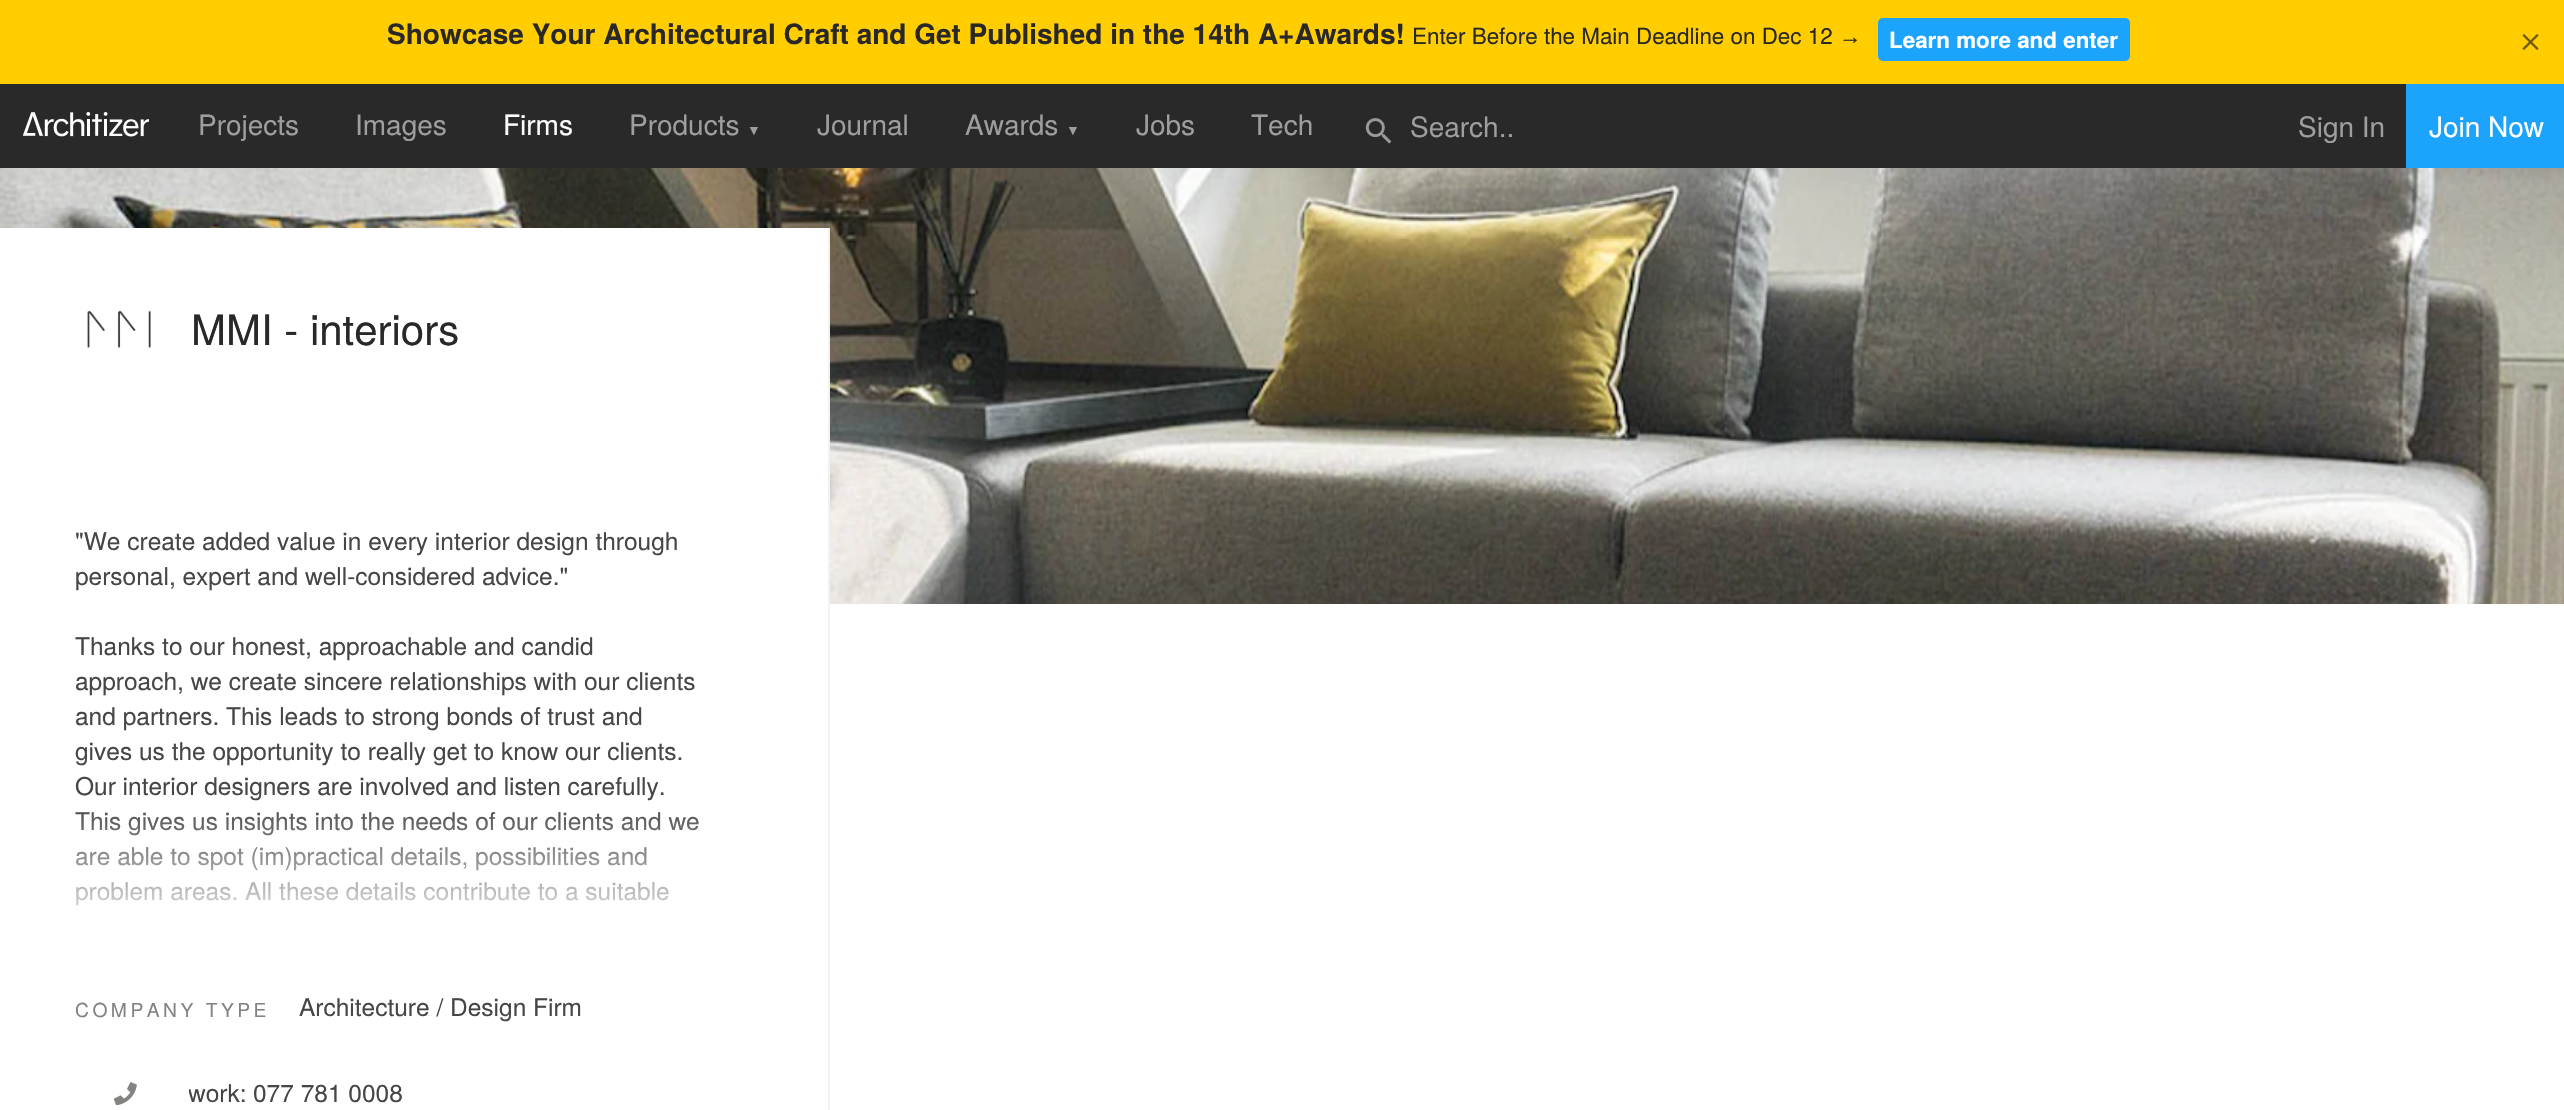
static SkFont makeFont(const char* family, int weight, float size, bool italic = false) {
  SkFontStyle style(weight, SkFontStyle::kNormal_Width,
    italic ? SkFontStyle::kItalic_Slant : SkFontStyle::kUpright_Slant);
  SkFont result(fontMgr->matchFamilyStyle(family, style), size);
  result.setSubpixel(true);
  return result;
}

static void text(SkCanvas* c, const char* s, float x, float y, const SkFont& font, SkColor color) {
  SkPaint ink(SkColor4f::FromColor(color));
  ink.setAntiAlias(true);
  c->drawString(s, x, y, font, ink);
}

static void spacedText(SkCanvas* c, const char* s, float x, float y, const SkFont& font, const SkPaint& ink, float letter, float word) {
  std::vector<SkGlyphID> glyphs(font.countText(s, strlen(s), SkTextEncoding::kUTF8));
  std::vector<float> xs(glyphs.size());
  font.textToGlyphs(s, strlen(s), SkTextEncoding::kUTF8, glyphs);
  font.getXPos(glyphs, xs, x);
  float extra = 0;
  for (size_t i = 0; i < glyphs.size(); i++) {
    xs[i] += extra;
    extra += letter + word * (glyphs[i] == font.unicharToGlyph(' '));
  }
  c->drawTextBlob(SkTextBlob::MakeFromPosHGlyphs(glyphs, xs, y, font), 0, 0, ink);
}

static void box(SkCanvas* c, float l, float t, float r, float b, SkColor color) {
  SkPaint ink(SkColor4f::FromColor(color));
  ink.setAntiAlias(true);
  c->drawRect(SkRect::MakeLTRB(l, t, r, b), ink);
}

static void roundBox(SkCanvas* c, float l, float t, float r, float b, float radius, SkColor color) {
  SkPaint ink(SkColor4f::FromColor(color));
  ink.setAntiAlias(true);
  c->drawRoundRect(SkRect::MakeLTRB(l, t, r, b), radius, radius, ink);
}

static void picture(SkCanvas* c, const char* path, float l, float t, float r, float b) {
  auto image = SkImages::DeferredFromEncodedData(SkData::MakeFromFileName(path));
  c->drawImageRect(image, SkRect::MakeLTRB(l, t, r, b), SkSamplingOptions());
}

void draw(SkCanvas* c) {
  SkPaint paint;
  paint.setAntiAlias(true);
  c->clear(0xffffffff);
  box(c, 0, 0, 2564, 84, 0xffffcd00);
  SkFont face1 = makeFont("TeX Gyre Heros", 700, 28);
  text(c, "Showcase Your Architectural Craft and Get Published in the 14th A+Awards!", 387, 44, face1, 0xff292827);
  SkFont face2 = makeFont("TeX Gyre Heros", 400, 22.4f);
  text(c, "Enter Before the Main Deadline on Dec 12", 1412, 44, face2, 0xff292827);
  SkFont face3 = makeFont("Liberation Sans", 400, 22.4f);
  text(c, "→", 1839, 44, face3, 0xff292827);
  roundBox(c, 1878, 18, 2130, 61, 5, 0xff1ca3fc);
  SkFont face4 = makeFont("TeX Gyre Heros", 700, 22.4f);
  text(c, "Learn more and enter", 1889, 48, face4, 0xffffffff);
  picture(c, "img_01.png", 2522, 34, 2539, 50);
  box(c, 0, 84, 2406, 168, 0xff292929);
  picture(c, "img_02.png", 23, 112, 149, 137);
  SkFont face5 = makeFont("TeX Gyre Heros", 400, 28);
  text(c, "Projects", 198, 135, face5, 0xff9e9e9e);
  text(c, "Images", 355, 135, face5, 0xff9e9e9e);
  text(c, "Firms", 503, 135, face5, 0xffffffff);
  text(c, "Products", 629, 135, face5, 0xff9e9e9e);
  SkFont face6 = makeFont("Liberation Sans", 400, 14);
  text(c, "▼", 747, 135, face6, 0xff9e9e9e);
  text(c, "Journal", 817, 135, face5, 0xff9e9e9e);
  text(c, "Awards", 965, 135, face5, 0xff9e9e9e);
  text(c, "▼", 1066, 135, face6, 0xff9e9e9e);
  text(c, "Jobs", 1136, 135, face5, 0xff9e9e9e);
  text(c, "Tech", 1251, 135, face5, 0xff9e9e9e);
  picture(c, "img_03.png", 1365, 118, 1392, 144);
  text(c, "Search..", 1410, 137, face5, 0xff9e9e9e);
  text(c, "Sign In", 2298, 137, face5, 0xff9e9e9e);
  box(c, 2406, 84, 2564, 168, 0xff1ca3fc);
  text(c, "Join Now", 2429, 137, face5, 0xffffffff);
  picture(c, "img_04.png", 0, 168, 2564, 604);
  box(c, 0, 228, 828, 604, 0xffffffff);
  box(c, 828, 228, 830, 1110, 0xfff2f2f2);
  picture(c, "img_05.png", 87, 310, 151, 348);
  SkFont face7 = makeFont("TeX Gyre Heros", 400, 42);
  text(c, "MMI - interiors", 191, 345, face7, 0xff292827);
  SkFont face8 = makeFont("TeX Gyre Heros", 400, 24.5f);
  text(c, "\"We create added value in every interior design through", 75, 550, face8, 0xff474645);
  text(c, "personal, expert and well-considered advice.\"", 75, 585, face8, 0xff474645);
  text(c, "Thanks to our honest, approachable and candid", 75, 655, face8, 0xff474645);
  text(c, "approach, we create sincere relationships with our clients", 75, 690, face8, 0xff474645);
  text(c, "and partners. This leads to strong bonds of trust and", 75, 725, face8, 0xff474645);
  text(c, "gives us the opportunity to really get to know our clients.", 75, 760, face8, 0xff474645);
  text(c, "Our interior designers are involved and listen carefully.", 75, 795, face8, 0xff474645);
  text(c, "This gives us insights into the needs of our clients and we", 75, 830, face8, 0xff474645);
  text(c, "are able to spot (im)practical details, possibilities and", 75, 865, face8, 0xff474645);
  text(c, "problem areas. All these details contribute to a suitable", 75, 900, face8, 0xff474645);
  {
    const SkColor colors[] = {0x00ffffff, 0xffffffff};
    const float stops[] = {0, 1};
    const SkPoint ends[] = {{390, 802}, {390, 942}};
    paint.setShader(SkGradientShader::MakeLinear(ends, colors, stops, 2, SkTileMode::kClamp));
    paint.setAlpha(255);
  }
  c->drawRect(SkRect::MakeLTRB(75, 812, 699, 906), paint);
  SkFont face9 = makeFont("TeX Gyre Heros", 400, 19.25f);
  paint.setShader(nullptr);
  paint.setColor(0xff858381);
  spacedText(c, "COMPANY TYPE", 75, 1017, face9, paint, 3.5f, 0);
  text(c, "Architecture / Design Firm", 299, 1016, face8, 0xff474645);
  picture(c, "img_06.png", 113, 1082, 137, 1106);
  c->save();
  c->clipRect(SkRect::MakeLTRB(189, 1078, 753, 1106));
  text(c, "work:", 188, 1102, face8, 0xff474645);
  c->restore();
  text(c, "077 781 0008", 253, 1102, face8, 0xff474645);
}
